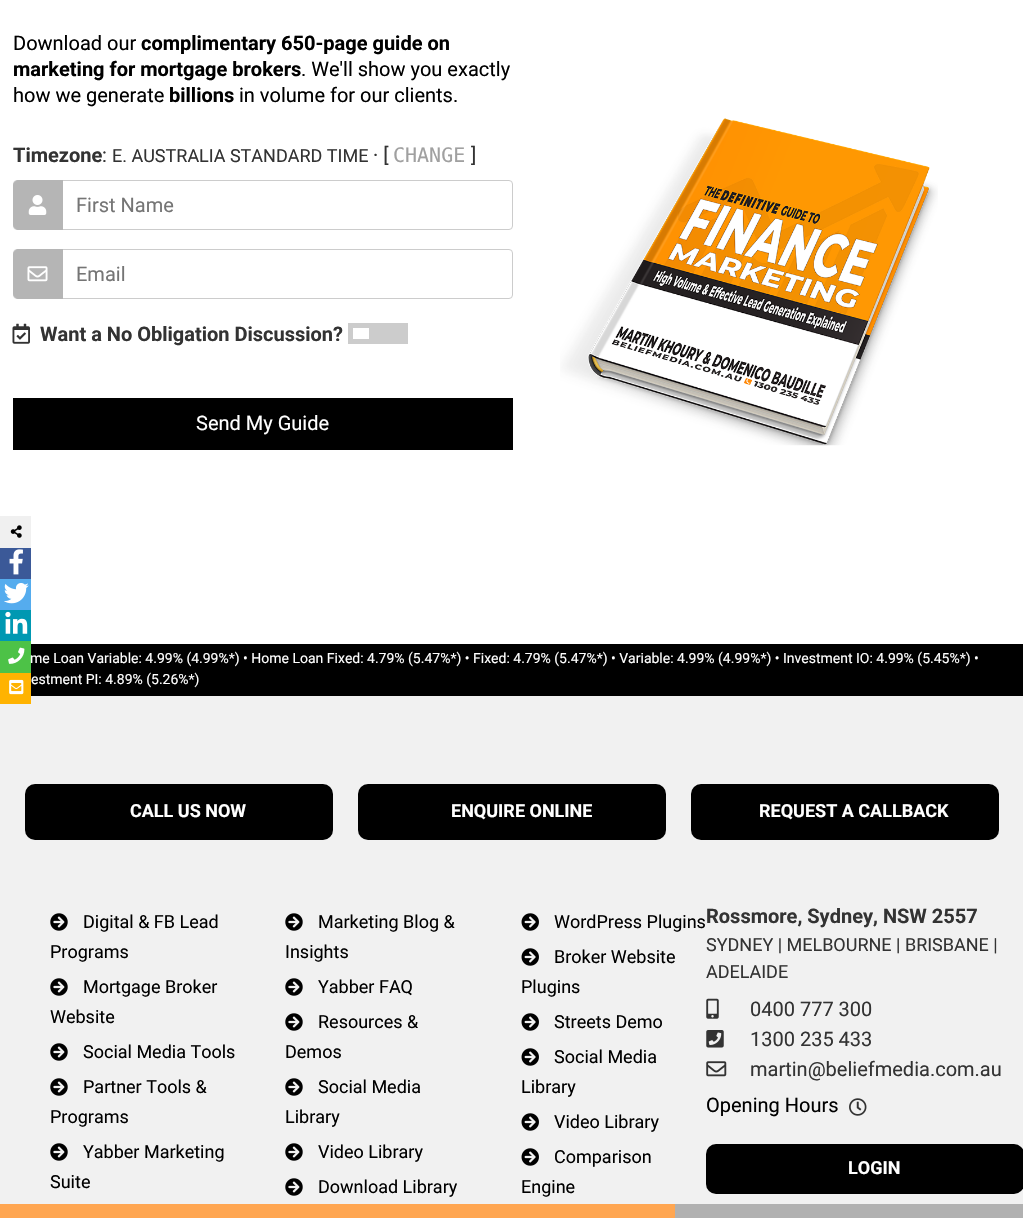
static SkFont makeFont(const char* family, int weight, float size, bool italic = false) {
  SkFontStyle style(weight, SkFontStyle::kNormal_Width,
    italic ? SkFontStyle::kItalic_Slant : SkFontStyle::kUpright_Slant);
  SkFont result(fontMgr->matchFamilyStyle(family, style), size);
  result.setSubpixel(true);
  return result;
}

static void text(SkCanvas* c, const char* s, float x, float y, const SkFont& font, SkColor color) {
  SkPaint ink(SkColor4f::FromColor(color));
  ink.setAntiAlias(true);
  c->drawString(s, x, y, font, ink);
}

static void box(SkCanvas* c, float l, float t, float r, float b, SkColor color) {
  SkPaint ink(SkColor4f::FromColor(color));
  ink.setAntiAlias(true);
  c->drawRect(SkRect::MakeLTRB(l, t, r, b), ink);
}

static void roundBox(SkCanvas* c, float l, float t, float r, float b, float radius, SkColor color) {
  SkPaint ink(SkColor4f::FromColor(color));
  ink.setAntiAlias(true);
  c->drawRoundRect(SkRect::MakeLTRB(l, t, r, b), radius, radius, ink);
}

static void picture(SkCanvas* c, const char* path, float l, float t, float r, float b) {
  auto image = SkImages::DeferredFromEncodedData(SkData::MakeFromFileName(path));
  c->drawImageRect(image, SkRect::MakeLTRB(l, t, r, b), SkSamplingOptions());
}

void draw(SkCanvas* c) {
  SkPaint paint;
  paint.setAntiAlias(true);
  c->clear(0xffffffff);
  SkFont face1 = makeFont("Roboto", 400, 20);
  text(c, "Download our", 13, 50, face1, 0xff000000);
  SkFont face2 = makeFont("Roboto", 700, 20);
  text(c, "complimentary 650-page guide on", 141, 50, face2, 0xff000000);
  text(c, "marketing for mortgage brokers", 13, 76, face2, 0xff000000);
  text(c, ". We'll show you exactly", 301, 76, face1, 0xff000000);
  text(c, "how we generate", 13, 102, face1, 0xff000000);
  text(c, "billions", 169, 102, face2, 0xff000000);
  text(c, "in volume for our clients.", 239, 102, face1, 0xff000000);
  text(c, "Timezone", 13, 162, face2, 0xff333333);
  text(c, ":", 102, 162, face1, 0xff333333);
  SkFont face3 = makeFont("Roboto", 400, 18);
  text(c, "E. AUSTRALIA STANDARD TIME", 112, 162, face3, 0xff333333);
  text(c, "· [", 373, 162, face1, 0xff333333);
  SkFont face4 = makeFont("DejaVu Sans Mono", 400, 20);
  text(c, "CHANGE", 393, 162, face4, 0xffa0a0a0);
  text(c, "]", 471, 162, face1, 0xff333333);
  paint.setStyle(SkPaint::kStroke_Style);
  paint.setStrokeWidth(1);
  paint.setColor(0xffcccccc);
  c->drawRoundRect(SkRect::MakeLTRB(13.5f, 180.5f, 512.5f, 229.5f), 3.5f, 3.5f, paint);
  paint.setStyle(SkPaint::kFill_Style);
  paint.setColor(0xffb5b5b5);
  c->drawPath(SkPathBuilder().moveTo(19, 180).lineTo(63, 180).lineTo(63, 230).lineTo(19, 230).cubicTo(15.5f, 230, 13, 227.5f, 13, 224).lineTo(13, 186).cubicTo(13, 182.5f, 15.5f, 180, 19, 180).close().detach(), paint);
  picture(c, "img_01.png", 28, 195, 47, 215);
  text(c, "First Name", 76, 212, face1, 0xff757575);
  paint.setStyle(SkPaint::kStroke_Style);
  paint.setColor(0xffcccccc);
  c->drawRoundRect(SkRect::MakeLTRB(13.5f, 249.5f, 512.5f, 298.5f), 3.5f, 3.5f, paint);
  paint.setStyle(SkPaint::kFill_Style);
  paint.setColor(0xffb5b5b5);
  c->drawPath(SkPathBuilder().moveTo(19, 249).lineTo(63, 249).lineTo(63, 299).lineTo(19, 299).cubicTo(15.5f, 299, 13, 296.5f, 13, 293).lineTo(13, 255).cubicTo(13, 251.5f, 15.5f, 249, 19, 249).close().detach(), paint);
  picture(c, "img_02.png", 27, 266, 48, 282);
  text(c, "Email", 76, 281, face1, 0xff757575);
  picture(c, "img_03.png", 12, 323, 30, 344);
  text(c, "Want a No Obligation Discussion?", 40, 341, face2, 0xff333333);
  box(c, 348, 323, 408, 344, 0xffcccccc);
  box(c, 353, 328, 369, 339, 0xffffffff);
  box(c, 13, 398, 513, 450, 0xff000000);
  text(c, "Send My Guide", 196, 430, face1, 0xffffffff);
  picture(c, "img_04.png", 560, 118, 938, 446);
  box(c, 0, 516, 31, 548, 0xfff0f0f0);
  picture(c, "img_05.png", 10, 525, 22, 538);
  box(c, 0, 548, 31, 579, 0xff3b5998);
  picture(c, "img_06.png", 9, 549, 23, 575);
  box(c, 0, 579, 31, 610, 0xff55acee);
  picture(c, "img_07.png", 4, 583, 29, 604);
  box(c, 0, 610, 31, 641, 0xff0098b2);
  picture(c, "img_08.png", 5, 611, 28, 634);
  box(c, 0, 641, 31, 673, 0xff4dc247);
  picture(c, "img_09.png", 8, 647, 25, 664);
  box(c, 0, 696, 1023, 1204, 0xfff1f1f1);
  box(c, 0, 673, 31, 704, 0xffffb301);
  picture(c, "img_10.png", 9, 679, 24, 695);
  box(c, 31, 644, 1023, 696, 0xff000000);
  SkFont face5 = makeFont("Roboto", 400, 14);
  text(c, "me Loan Variable: 4.99% (4.99%*) • Home Loan Fixed: 4.79% (5.47%*) • Fixed: 4.79% (5.47%*) • Variable: 4.99% (4.99%*) • Investment IO: 4.99% (5.45%*) •", 30, 663, face5, 0xffffffff);
  text(c, "estment PI: 4.89% (5.26%*)", 31, 684, face5, 0xffffffff);
  roundBox(c, 25, 784, 333, 840, 10, 0xff000000);
  SkFont face6 = makeFont("Roboto", 700, 18);
  text(c, "CALL US NOW", 130, 817, face6, 0xffffffff);
  roundBox(c, 358, 784, 666, 840, 10, 0xff000000);
  text(c, "ENQUIRE ONLINE", 451, 817, face6, 0xffffffff);
  roundBox(c, 691, 784, 999, 840, 10, 0xff000000);
  text(c, "REQUEST A CALLBACK", 759, 817, face6, 0xffffffff);
  picture(c, "img_11.png", 50, 913, 68, 931);
  text(c, "Digital & FB Lead", 83, 928, face3, 0xff000000);
  text(c, "Programs", 50, 958, face3, 0xff000000);
  picture(c, "img_11.png", 50, 978, 68, 996);
  text(c, "Mortgage Broker", 83, 993, face3, 0xff000000);
  text(c, "Website", 50, 1023, face3, 0xff000000);
  picture(c, "img_11.png", 50, 1043, 68, 1061);
  text(c, "Social Media Tools", 83, 1058, face3, 0xff000000);
  picture(c, "img_11.png", 50, 1078, 68, 1096);
  text(c, "Partner Tools &", 83, 1093, face3, 0xff000000);
  text(c, "Programs", 50, 1123, face3, 0xff000000);
  picture(c, "img_11.png", 50, 1143, 68, 1161);
  text(c, "Yabber Marketing", 83, 1158, face3, 0xff000000);
  text(c, "Suite", 50, 1188, face3, 0xff000000);
  picture(c, "img_11.png", 285, 913, 303, 931);
  text(c, "Marketing Blog &", 318, 928, face3, 0xff000000);
  text(c, "Insights", 285, 958, face3, 0xff000000);
  picture(c, "img_11.png", 285, 978, 303, 996);
  text(c, "Yabber FAQ", 318, 993, face3, 0xff000000);
  picture(c, "img_11.png", 285, 1013, 303, 1031);
  text(c, "Resources &", 318, 1028, face3, 0xff000000);
  text(c, "Demos", 285, 1058, face3, 0xff000000);
  picture(c, "img_11.png", 285, 1078, 303, 1096);
  text(c, "Social Media", 318, 1093, face3, 0xff000000);
  text(c, "Library", 285, 1123, face3, 0xff000000);
  picture(c, "img_11.png", 285, 1143, 303, 1161);
  text(c, "Video Library", 318, 1158, face3, 0xff000000);
  picture(c, "img_11.png", 285, 1178, 303, 1196);
  text(c, "Download Library", 318, 1193, face3, 0xff000000);
  picture(c, "img_12.png", 521, 913, 539, 931);
  text(c, "WordPress Plugins", 554, 928, face3, 0xff000000);
  picture(c, "img_12.png", 521, 948, 539, 966);
  text(c, "Broker Website", 554, 963, face3, 0xff000000);
  text(c, "Plugins", 521, 993, face3, 0xff000000);
  picture(c, "img_12.png", 521, 1013, 539, 1031);
  text(c, "Streets Demo", 554, 1028, face3, 0xff000000);
  picture(c, "img_12.png", 521, 1048, 539, 1066);
  text(c, "Social Media", 554, 1063, face3, 0xff000000);
  text(c, "Library", 521, 1093, face3, 0xff000000);
  picture(c, "img_12.png", 521, 1113, 539, 1131);
  text(c, "Video Library", 554, 1128, face3, 0xff000000);
  picture(c, "img_12.png", 521, 1148, 539, 1166);
  text(c, "Comparison", 554, 1163, face3, 0xff000000);
  text(c, "Engine", 521, 1193, face3, 0xff000000);
  text(c, "Rossmore, Sydney, NSW 2557", 706, 923, face2, 0xff333333);
  text(c, "SYDNEY | MELBOURNE | BRISBANE |", 706, 951, face3, 0xff333333);
  text(c, "ADELAIDE", 706, 978, face3, 0xff333333);
  picture(c, "img_13.png", 706, 998, 719, 1019);
  text(c, "0400 777 300", 750, 1016, face1, 0xff333333);
  picture(c, "img_14.png", 706, 1030, 724, 1048);
  text(c, "1300 235 433", 750, 1046, face1, 0xff333333);
  picture(c, "img_15.png", 706, 1061, 727, 1077);
  text(c, "martin@beliefmedia.com.au", 750, 1076, face1, 0xff333333);
  text(c, "Opening Hours", 706, 1112, face1, 0xff000000);
  picture(c, "img_16.png", 849, 1098, 867, 1116);
  roundBox(c, 706, 1144, 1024, 1194, 10, 0xff000000);
  text(c, "LOGIN", 848, 1174, face6, 0xffffffff);
  box(c, 675, 1204, 1023, 1218, 0xffb1b1b1);
  box(c, 0, 1204, 675, 1218, 0xffffa651);
}
